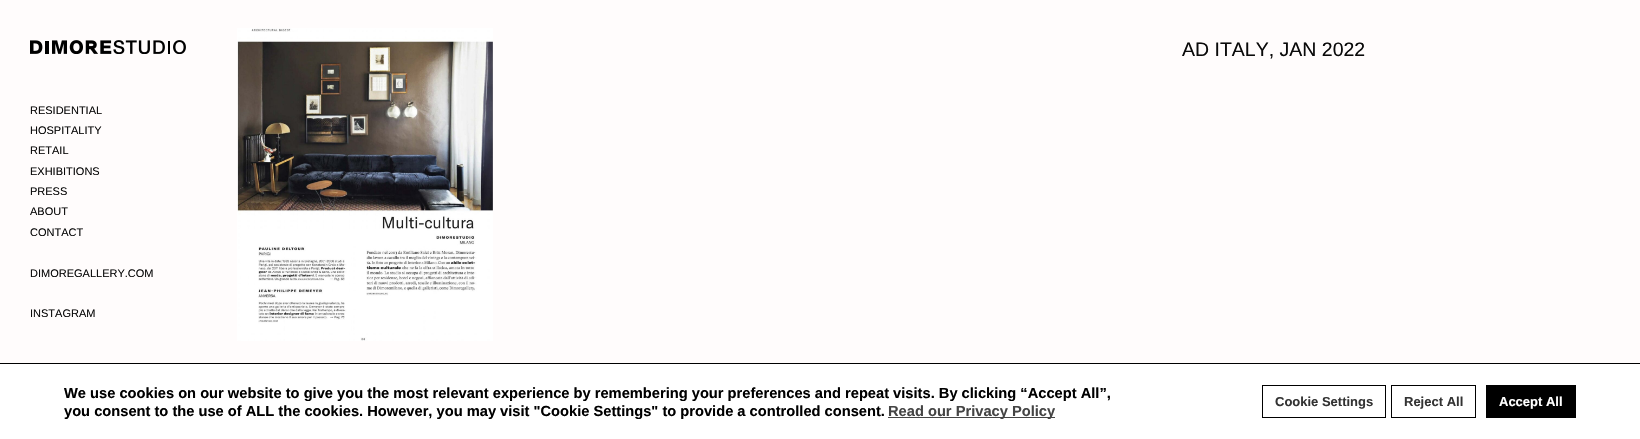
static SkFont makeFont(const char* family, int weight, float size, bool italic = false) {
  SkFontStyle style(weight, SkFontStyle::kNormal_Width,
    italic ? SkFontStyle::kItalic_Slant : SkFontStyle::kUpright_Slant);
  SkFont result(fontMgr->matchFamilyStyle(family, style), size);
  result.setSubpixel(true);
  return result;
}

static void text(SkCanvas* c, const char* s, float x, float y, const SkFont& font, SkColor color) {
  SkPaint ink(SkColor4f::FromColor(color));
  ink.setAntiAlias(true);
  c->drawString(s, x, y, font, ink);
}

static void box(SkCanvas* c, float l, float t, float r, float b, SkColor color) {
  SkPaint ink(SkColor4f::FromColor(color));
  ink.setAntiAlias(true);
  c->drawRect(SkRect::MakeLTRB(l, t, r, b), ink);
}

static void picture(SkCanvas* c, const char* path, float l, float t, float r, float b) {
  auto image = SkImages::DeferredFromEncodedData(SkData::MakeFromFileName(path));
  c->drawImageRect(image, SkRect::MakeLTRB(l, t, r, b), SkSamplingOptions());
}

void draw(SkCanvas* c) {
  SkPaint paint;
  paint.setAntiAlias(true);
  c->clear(0xfffffcfc);
  picture(c, "img_01.png", 237, 28, 493, 341);
  SkFont face1 = makeFont("Liberation Sans", 400, 19.5f);
  text(c, "AD ITALY, JAN 2022", 1182, 56, face1, 0xff0a0a0a);
  picture(c, "img_02.png", 30, 40, 186, 54);
  SkFont face2 = makeFont("Liberation Sans", 400, 11);
  text(c, "RESIDENTIAL", 30, 114, face2, 0xff0a0a0a);
  text(c, "HOSPITALITY", 30, 134, face2, 0xff0a0a0a);
  text(c, "RETAIL", 30, 154, face2, 0xff0a0a0a);
  text(c, "EXHIBITIONS", 30, 175, face2, 0xff0a0a0a);
  text(c, "PRESS", 30, 195, face2, 0xff0a0a0a);
  text(c, "ABOUT", 30, 215, face2, 0xff0a0a0a);
  text(c, "CONTACT", 30, 236, face2, 0xff0a0a0a);
  text(c, "DIMOREGALLERY.COM", 30, 277, face2, 0xff0a0a0a);
  text(c, "INSTAGRAM", 30, 317, face2, 0xff0a0a0a);
  box(c, 0, 364, 1640, 439, 0xffffffff);
  box(c, 0, 363, 1640, 364, 0xff000000);
  SkFont face3 = makeFont("Liberation Sans", 700, 14.67f);
  text(c, "We use cookies on our website to give you the most relevant experience by remembering your preferences and repeat visits. By clicking “Accept All”,", 64, 398, face3, 0xff000000);
  text(c, "you consent to the use of ALL the cookies. However, you may visit \"Cookie Settings\" to provide a controlled consent.", 64, 416, face3, 0xff000000);
  box(c, 888, 417, 1055, 418, 0xff444444);
  text(c, "Read our Privacy Policy", 888, 416, face3, 0xff444444);
  paint.setStyle(SkPaint::kStroke_Style);
  paint.setStrokeWidth(1);
  paint.setColor(0xff000000);
  c->drawRect(SkRect::MakeLTRB(1262.5f, 385.5f, 1385.5f, 417.5f), paint);
  SkFont face4 = makeFont("Liberation Sans", 700, 13);
  text(c, "Cookie Settings", 1275, 406, face4, 0xff333333);
  c->drawRect(SkRect::MakeLTRB(1391.5f, 385.5f, 1475.5f, 417.5f), paint);
  text(c, "Reject All", 1404, 406, face4, 0xff333333);
  box(c, 1486, 385, 1576, 418, 0xff000000);
  text(c, "Accept All", 1499, 406, face4, 0xffffffff);
}
